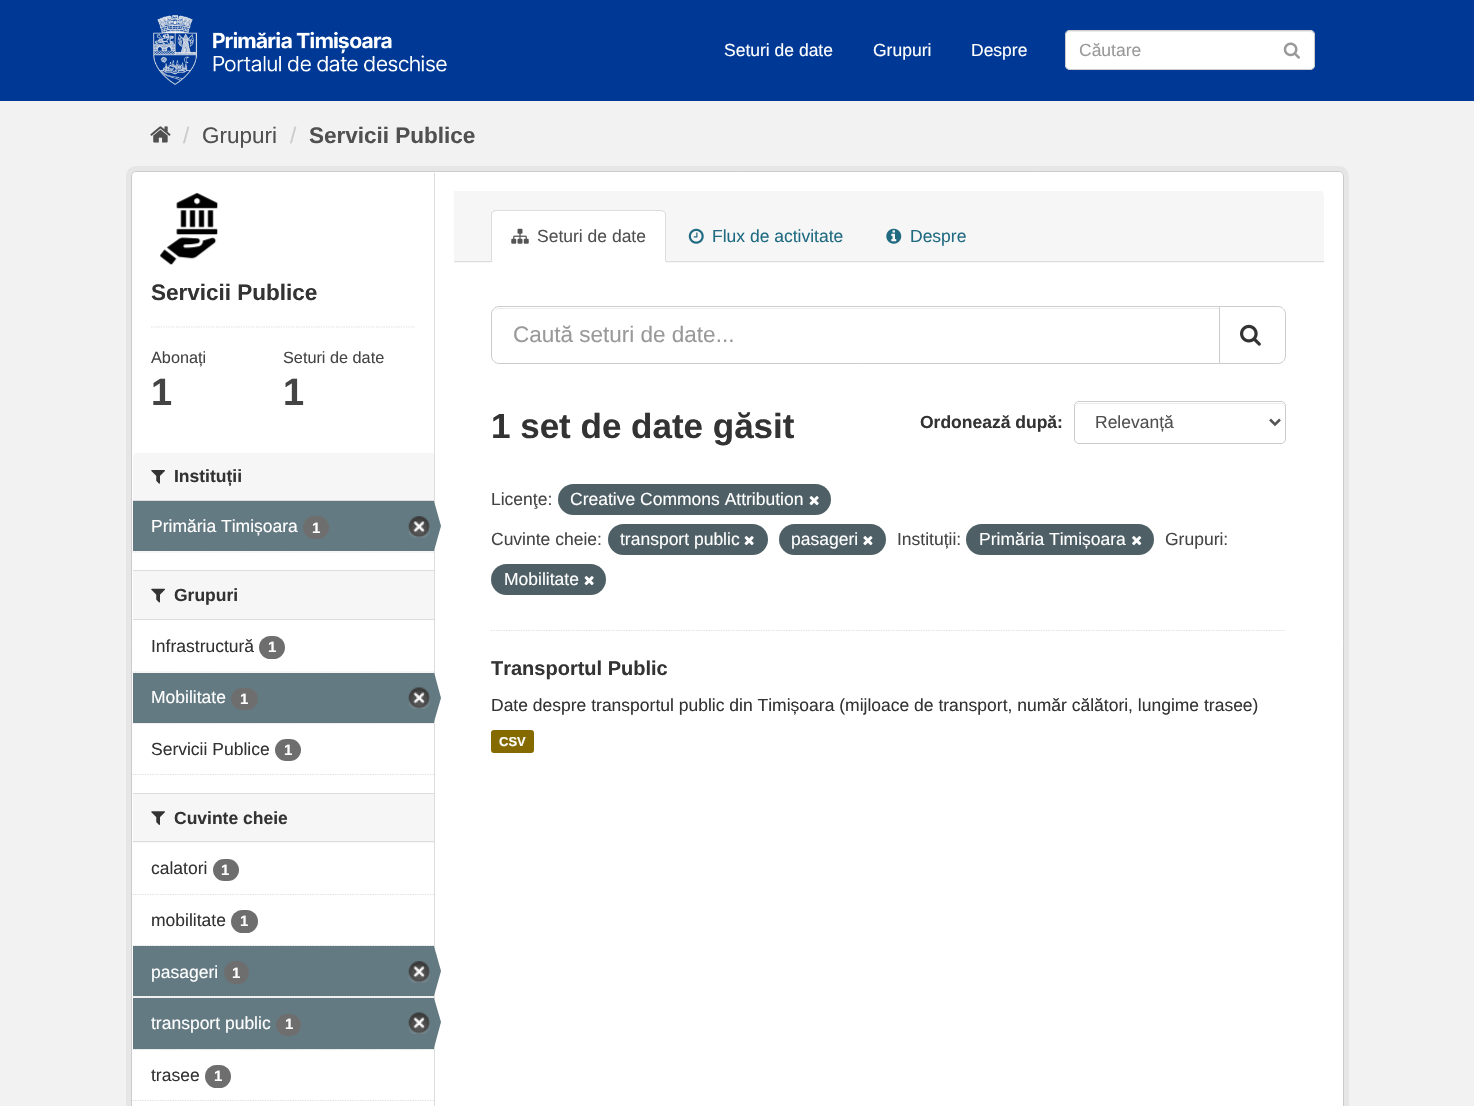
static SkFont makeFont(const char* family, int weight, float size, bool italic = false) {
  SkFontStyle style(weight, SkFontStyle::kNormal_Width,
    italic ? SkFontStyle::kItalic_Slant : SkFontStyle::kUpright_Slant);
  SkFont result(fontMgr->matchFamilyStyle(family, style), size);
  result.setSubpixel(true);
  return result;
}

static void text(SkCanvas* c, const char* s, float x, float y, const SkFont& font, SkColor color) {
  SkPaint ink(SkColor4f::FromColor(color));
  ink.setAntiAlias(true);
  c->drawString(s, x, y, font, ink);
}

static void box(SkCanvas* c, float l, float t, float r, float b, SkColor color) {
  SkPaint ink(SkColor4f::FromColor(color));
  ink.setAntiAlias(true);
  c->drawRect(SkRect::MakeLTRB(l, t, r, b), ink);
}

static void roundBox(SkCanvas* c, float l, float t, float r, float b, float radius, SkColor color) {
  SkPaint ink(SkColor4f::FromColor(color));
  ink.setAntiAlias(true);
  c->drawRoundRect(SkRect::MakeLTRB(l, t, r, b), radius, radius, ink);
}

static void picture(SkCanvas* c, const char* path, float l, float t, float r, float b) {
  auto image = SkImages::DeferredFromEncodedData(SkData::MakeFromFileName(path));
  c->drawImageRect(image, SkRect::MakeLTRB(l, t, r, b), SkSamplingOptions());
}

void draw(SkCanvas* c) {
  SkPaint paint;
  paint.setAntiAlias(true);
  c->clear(0xfff2f2f2);
  box(c, 0, 0, 1474, 101, 0xff003995);
  picture(c, "img_01.png", 153, 15, 447, 85);
  SkFont face1 = makeFont("Liberation Sans", 400, 17.5f);
  text(c, "Seturi de date", 724, 56, face1, 0xffffffff);
  text(c, "Grupuri", 873, 56, face1, 0xffffffff);
  text(c, "Despre", 971, 56, face1, 0xffffffff);
  roundBox(c, 1065, 30, 1315, 70, 5, 0xffffffff);
  paint.setColor(0xffececec);
  c->drawPath(SkPathBuilder().moveTo(1070, 32).lineTo(1310, 32).cubicTo(1312, 32, 1314, 34, 1314, 36).lineTo(1314, 35).cubicTo(1314, 33, 1312, 31, 1310, 31).lineTo(1070, 31).cubicTo(1068, 31, 1066, 33, 1066, 35).lineTo(1066, 36).cubicTo(1066, 34, 1068, 32, 1070, 32).close().detach(), paint);
  paint.setStyle(SkPaint::kStroke_Style);
  paint.setStrokeWidth(1);
  paint.setColor(0xffcccccc);
  c->drawRoundRect(SkRect::MakeLTRB(1065.5f, 30.5f, 1314.5f, 69.5f), 4.5f, 4.5f, paint);
  text(c, "Căutare", 1079, 56, face1, 0xff999999);
  picture(c, "img_02.png", 1283, 42, 1300, 59);
  picture(c, "img_03.png", 150, 126, 171, 143);
  SkFont face2 = makeFont("Liberation Sans", 400, 22.5f);
  text(c, "/", 183, 143, face2, 0xffcccccc);
  text(c, "Grupuri", 202, 143, face2, 0xff505050);
  text(c, "/", 290, 143, face2, 0xffcccccc);
  SkFont face3 = makeFont("Liberation Sans", 700, 22.5f);
  text(c, "Servicii Publice", 309, 143, face3, 0xff505050);
  paint.setStrokeWidth(5);
  paint.setColor(0xffe6e6e6);
  c->drawRoundRect(SkRect::MakeLTRB(128.5f, 168.5f, 1346.5f, 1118.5f), 7.5f, 7.5f, paint);
  paint.setStyle(SkPaint::kFill_Style);
  paint.setColor(0xffffffff);
  c->drawRoundRect(SkRect::MakeLTRB(131.5f, 171.5f, 1343.5f, 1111.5f), 4.5f, 4.5f, paint);
  paint.setStyle(SkPaint::kStroke_Style);
  paint.setStrokeWidth(1);
  paint.setColor(0xffcccccc);
  c->drawRoundRect(SkRect::MakeLTRB(131.5f, 171.5f, 1343.5f, 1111.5f), 4.5f, 4.5f, paint);
  picture(c, "img_04.png", 160, 192, 218, 265);
  text(c, "Servicii Publice", 151, 300, face3, 0xff333333);
  paint.setStrokeWidth(1.2f);
  paint.setColor(0xffdddddd);
  paint.setPathEffect(SkDashPathEffect::Make({{1.25f, 1.25f}}, 0));
  c->drawPath(SkPathBuilder().moveTo(151, 327).lineTo(415, 327).detach(), paint);
  paint.setPathEffect(nullptr);
  SkFont face4 = makeFont("Liberation Sans", 400, 16.25f);
  text(c, "Abonați", 151, 363, face4, 0xff444444);
  SkFont face5 = makeFont("Liberation Sans", 700, 38);
  text(c, "1", 151, 405, face5, 0xff444444);
  text(c, "Seturi de date", 283, 363, face4, 0xff444444);
  text(c, "1", 283, 405, face5, 0xff444444);
  paint.setStyle(SkPaint::kFill_Style);
  paint.setColor(0xfff6f6f6);
  c->drawPath(SkPathBuilder().moveTo(137, 453).lineTo(434, 453).lineTo(434, 501).lineTo(133, 501).lineTo(133, 457).cubicTo(133, 455, 135, 453, 137, 453).close().detach(), paint);
  box(c, 133, 500, 434, 501, 0xffdddddd);
  picture(c, "img_05.png", 151, 470, 165, 484);
  SkFont face6 = makeFont("Liberation Sans", 700, 17.5f);
  text(c, "Instituții", 174, 482, face6, 0xff333333);
  box(c, 133, 501, 434, 551, 0xff647a82);
  text(c, "Primăria Timișoara", 151, 532, face1, 0xffffffff);
  roundBox(c, 303, 516, 329, 539, 11.5f, 0xff6e6e6e);
  SkFont face7 = makeFont("Liberation Sans", 700, 15);
  text(c, "1", 312, 533, face7, 0xffffffff);
  picture(c, "img_06.png", 408, 516, 430, 538);
  box(c, 434, 173, 435, 1106, 0xffdddddd);
  paint.setColor(0xff647a82);
  c->drawPath(SkPathBuilder().moveTo(434, 551).lineTo(434, 501).lineTo(441, 526).close().detach(), paint);
  paint.setStyle(SkPaint::kStroke_Style);
  paint.setColor(0xffdddddd);
  paint.setPathEffect(SkDashPathEffect::Make({{1.25f, 1.25f}}, 0));
  c->drawPath(SkPathBuilder().moveTo(132.5f, 552).lineTo(434, 552).detach(), paint);
  paint.setPathEffect(nullptr);
  box(c, 133, 571, 434, 619, 0xfff6f6f6);
  box(c, 133, 570, 434, 571, 0xffdddddd);
  box(c, 133, 619, 434, 620, 0xffdddddd);
  picture(c, "img_07.png", 151, 588, 165, 603);
  text(c, "Grupuri", 174, 601, face6, 0xff333333);
  paint.setPathEffect(SkDashPathEffect::Make({{1.25f, 1.25f}}, 0));
  c->drawPath(SkPathBuilder().moveTo(132.5f, 672).lineTo(434, 672).detach(), paint);
  paint.setPathEffect(nullptr);
  text(c, "Infrastructură", 151, 652, face1, 0xff333333);
  roundBox(c, 259, 636, 285, 659, 11.5f, 0xff6e6e6e);
  text(c, "1", 268, 652, face7, 0xffffffff);
  box(c, 133, 723, 434, 724, 0xfff6f6f6);
  paint.setPathEffect(SkDashPathEffect::Make({{1.25f, 1.25f}}, 0));
  c->drawPath(SkPathBuilder().moveTo(132.5f, 723).lineTo(434, 723).detach(), paint);
  paint.setPathEffect(nullptr);
  box(c, 133, 673, 434, 723, 0xff647a82);
  text(c, "Mobilitate", 151, 703, face1, 0xffffffff);
  roundBox(c, 231, 688, 258, 710, 11, 0xff6e6e6e);
  text(c, "1", 240, 704, face7, 0xffffffff);
  picture(c, "img_08.png", 408, 687, 430, 709);
  paint.setStyle(SkPaint::kFill_Style);
  paint.setColor(0xff647a82);
  c->drawPath(SkPathBuilder().moveTo(434, 722).lineTo(434, 672).lineTo(441, 698).close().detach(), paint);
  text(c, "Servicii Publice", 151, 755, face1, 0xff333333);
  roundBox(c, 275, 739, 301, 761, 11, 0xff6e6e6e);
  text(c, "1", 284, 755, face7, 0xffffffff);
  paint.setStyle(SkPaint::kStroke_Style);
  paint.setColor(0xffdddddd);
  paint.setPathEffect(SkDashPathEffect::Make({{1.25f, 1.25f}}, 0));
  c->drawPath(SkPathBuilder().moveTo(132.5f, 774.5f).lineTo(434, 774.5f).detach(), paint);
  paint.setPathEffect(nullptr);
  box(c, 133, 794, 434, 843, 0xfff6f6f6);
  box(c, 133, 793, 434, 794, 0xffdddddd);
  box(c, 133, 841, 434, 842, 0xffdddddd);
  picture(c, "img_09.png", 151, 811, 165, 825);
  text(c, "Cuvinte cheie", 174, 824, face6, 0xff333333);
  paint.setPathEffect(SkDashPathEffect::Make({{1.25f, 1.25f}}, 0));
  c->drawPath(SkPathBuilder().moveTo(132.5f, 894.5f).lineTo(434, 894.5f).detach(), paint);
  paint.setPathEffect(nullptr);
  text(c, "calatori", 151, 874, face1, 0xff333333);
  roundBox(c, 213, 859, 239, 881, 11, 0xff6e6e6e);
  text(c, "1", 221, 875, face7, 0xffffffff);
  paint.setPathEffect(SkDashPathEffect::Make({{1.25f, 1.25f}}, 0));
  c->drawPath(SkPathBuilder().moveTo(132.5f, 945.5f).lineTo(434, 945.5f).detach(), paint);
  paint.setPathEffect(nullptr);
  text(c, "mobilitate", 151, 926, face1, 0xff333333);
  roundBox(c, 231, 910, 258, 933, 11.5f, 0xff6e6e6e);
  text(c, "1", 240, 926, face7, 0xffffffff);
  box(c, 133, 996, 434, 998, 0xfff6f6f6);
  paint.setPathEffect(SkDashPathEffect::Make({{1.25f, 1.25f}}, 0));
  c->drawPath(SkPathBuilder().moveTo(132.5f, 997).lineTo(434, 997).detach(), paint);
  paint.setPathEffect(nullptr);
  box(c, 133, 946, 434, 996, 0xff647a82);
  text(c, "pasageri", 151, 978, face1, 0xffffffff);
  roundBox(c, 224, 961, 249, 984, 11.5f, 0xff6e6e6e);
  text(c, "1", 232, 978, face7, 0xffffffff);
  picture(c, "img_06.png", 408, 961, 430, 983);
  paint.setStyle(SkPaint::kFill_Style);
  paint.setColor(0xff647a82);
  c->drawPath(SkPathBuilder().moveTo(434, 996).lineTo(434, 946).lineTo(441, 971).close().detach(), paint);
  box(c, 133, 1049, 434, 1050, 0xfff6f6f6);
  paint.setStyle(SkPaint::kStroke_Style);
  paint.setColor(0xffdddddd);
  paint.setPathEffect(SkDashPathEffect::Make({{1.25f, 1.25f}}, 0));
  c->drawPath(SkPathBuilder().moveTo(132.5f, 1049.5f).lineTo(434, 1049.5f).detach(), paint);
  paint.setPathEffect(nullptr);
  box(c, 133, 998, 434, 1049, 0xff647a82);
  text(c, "transport public", 151, 1029, face1, 0xffffffff);
  roundBox(c, 276, 1014, 301, 1036, 11, 0xff6e6e6e);
  text(c, "1", 285, 1029, face7, 0xffffffff);
  picture(c, "img_08.png", 408, 1012, 430, 1034);
  paint.setStyle(SkPaint::kFill_Style);
  paint.setColor(0xff647a82);
  c->drawPath(SkPathBuilder().moveTo(434, 1048).lineTo(434, 998).lineTo(441, 1022).close().detach(), paint);
  text(c, "trasee", 151, 1081, face1, 0xff333333);
  roundBox(c, 205, 1065, 231, 1088, 11.5f, 0xff6e6e6e);
  text(c, "1", 214, 1081, face7, 0xffffffff);
  paint.setStyle(SkPaint::kStroke_Style);
  paint.setColor(0xffdddddd);
  paint.setPathEffect(SkDashPathEffect::Make({{1.25f, 1.25f}}, 0));
  c->drawPath(SkPathBuilder().moveTo(132.5f, 1100.5f).lineTo(434, 1100.5f).detach(), paint);
  paint.setPathEffect(nullptr);
  paint.setStyle(SkPaint::kFill_Style);
  paint.setColor(0xfff6f6f6);
  c->drawPath(SkPathBuilder().moveTo(454, 191).lineTo(1320, 191).cubicTo(1322, 191, 1324, 193, 1324, 195).lineTo(1324, 263).lineTo(454, 263).close().detach(), paint);
  box(c, 454, 261, 1324, 262, 0xffdddddd);
  paint.setColor(0xffffffff);
  c->drawPath(SkPathBuilder().moveTo(496, 210).lineTo(661, 210).cubicTo(664, 210, 666, 212, 666, 215).lineTo(666, 263).lineTo(491, 263).lineTo(491, 215).cubicTo(491, 212, 493, 210, 496, 210).close().detach(), paint);
  paint.setColor(0xffdddddd);
  c->drawPath(SkPathBuilder().moveTo(496, 210).cubicTo(495, 210, 493, 210, 493, 211).lineTo(493, 212).lineTo(496, 211).lineTo(661, 211).lineTo(664, 212).lineTo(665, 212).cubicTo(664, 211, 663, 210, 661, 210).close().detach(), paint);
  c->drawPath(SkPathBuilder().moveTo(665, 212).cubicTo(666, 212, 666, 214, 666, 215).lineTo(666, 262).lineTo(665, 261).lineTo(665, 215).cubicTo(665, 214, 665, 213, 664, 212).close().detach(), paint);
  c->drawPath(SkPathBuilder().moveTo(491, 213).lineTo(493, 211).lineTo(493, 212).lineTo(492, 214).lineTo(492, 261).lineTo(493, 261).lineTo(492, 262).lineTo(491, 262).close().detach(), paint);
  picture(c, "img_10.png", 511, 228, 529, 244);
  text(c, "Seturi de date", 537, 242, face1, 0xff505050);
  picture(c, "img_11.png", 688, 228, 704, 244);
  text(c, "Flux de activitate", 712, 242, face1, 0xff206b82);
  picture(c, "img_12.png", 886, 228, 902, 244);
  text(c, "Despre", 910, 242, face1, 0xff206b82);
  paint.setStyle(SkPaint::kStroke_Style);
  paint.setPathEffect(SkDashPathEffect::Make({{1.25f, 1.25f}}, 0));
  c->drawPath(SkPathBuilder().moveTo(491, 630.5f).lineTo(1286, 630.5f).detach(), paint);
  paint.setPathEffect(nullptr);
  paint.setStyle(SkPaint::kFill_Style);
  paint.setColor(0xffececec);
  c->drawPath(SkPathBuilder().moveTo(499, 309).lineTo(1219, 309).lineTo(1219, 308).lineTo(499, 308).cubicTo(497, 308, 495, 309, 494, 311).cubicTo(495, 310, 497, 309, 499, 309).close().detach(), paint);
  paint.setStyle(SkPaint::kStroke_Style);
  paint.setStrokeWidth(1);
  paint.setColor(0xffcccccc);
  c->drawPath(SkPathBuilder().moveTo(499, 306.5f).lineTo(1219.5f, 306.5f).lineTo(1219.5f, 363.5f).lineTo(499, 363.5f).cubicTo(495, 363.5f, 491.5f, 360, 491.5f, 356).lineTo(491.5f, 314).cubicTo(491.5f, 310, 495, 306.5f, 499, 306.5f).close().detach(), paint);
  text(c, "Caută seturi de date...", 513, 342, face2, 0xff999999);
  paint.setStyle(SkPaint::kFill_Style);
  paint.setColor(0xffffffff);
  c->drawPath(SkPathBuilder().moveTo(1219.5f, 306.5f).lineTo(1278, 306.5f).cubicTo(1282, 306.5f, 1285.5f, 310, 1285.5f, 314).lineTo(1285.5f, 356).cubicTo(1285.5f, 360, 1282, 363.5f, 1278, 363.5f).lineTo(1219.5f, 363.5f).close().detach(), paint);
  paint.setStyle(SkPaint::kStroke_Style);
  paint.setColor(0xffcccccc);
  c->drawPath(SkPathBuilder().moveTo(1219.5f, 306.5f).lineTo(1278, 306.5f).cubicTo(1282, 306.5f, 1285.5f, 310, 1285.5f, 314).lineTo(1285.5f, 356).cubicTo(1285.5f, 360, 1282, 363.5f, 1278, 363.5f).lineTo(1219.5f, 363.5f).close().detach(), paint);
  picture(c, "img_13.png", 1240, 324, 1261, 346);
  SkFont face8 = makeFont("Liberation Sans", 700, 35);
  text(c, "1 set de date găsit", 491, 438, face8, 0xff333333);
  text(c, "Ordonează după:", 920, 428, face6, 0xff333333);
  paint.setStyle(SkPaint::kFill_Style);
  paint.setColor(0xffececec);
  c->drawPath(SkPathBuilder().moveTo(1079, 404).lineTo(1281, 404).cubicTo(1283, 404, 1285, 405, 1285, 408).lineTo(1285, 407).cubicTo(1285, 405, 1283, 403, 1281, 403).lineTo(1079, 403).cubicTo(1077, 403, 1075, 405, 1075, 407).lineTo(1075, 408).cubicTo(1075, 405, 1077, 404, 1079, 404).close().detach(), paint);
  paint.setStyle(SkPaint::kStroke_Style);
  paint.setColor(0xffcccccc);
  c->drawRoundRect(SkRect::MakeLTRB(1074.5f, 401.5f, 1285.5f, 443.5f), 4.5f, 4.5f, paint);
  paint.setStrokeWidth(2.5f);
  paint.setColor(0xff555555);
  c->drawPath(SkPathBuilder().moveTo(1270, 419.5f).lineTo(1275, 424.5f).lineTo(1280, 419.5f).detach(), paint);
  text(c, "Relevanță", 1095, 428, face1, 0xff505050);
  text(c, "Licenţe:", 491, 505, face1, 0xff444444);
  roundBox(c, 558, 484, 831, 515, 15.5f, 0xff4e5f65);
  text(c, "Creative Commons Attribution", 570, 505, face1, 0xffffffff);
  picture(c, "img_14.png", 809, 496, 819, 506);
  text(c, "Cuvinte cheie:", 491, 545, face1, 0xff444444);
  roundBox(c, 608, 524, 768, 555, 15.5f, 0xff4e5f65);
  text(c, "transport public", 620, 545, face1, 0xffffffff);
  picture(c, "img_14.png", 744, 536, 754, 546);
  roundBox(c, 779, 524, 886, 555, 15.5f, 0xff4e5f65);
  text(c, "pasageri", 791, 545, face1, 0xffffffff);
  picture(c, "img_15.png", 863, 536, 873, 546);
  text(c, "Instituții:", 897, 545, face1, 0xff444444);
  roundBox(c, 966, 524, 1154, 555, 15.5f, 0xff4e5f65);
  text(c, "Primăria Timișoara", 979, 545, face1, 0xffffffff);
  picture(c, "img_16.png", 1132, 536, 1142, 546);
  text(c, "Grupuri:", 1165, 545, face1, 0xff444444);
  roundBox(c, 491, 564, 606, 595, 15.5f, 0xff4e5f65);
  text(c, "Mobilitate", 504, 585, face1, 0xffffffff);
  picture(c, "img_14.png", 584, 576, 594, 586);
  SkFont face9 = makeFont("Liberation Sans", 700, 20);
  text(c, "Transportul Public", 491, 675, face9, 0xff333333);
  text(c, "Date despre transportul public din Timișoara (mijloace de transport, număr călători, lungime trasee)", 491, 711, face1, 0xff333333);
  roundBox(c, 491, 730, 534, 753, 3, 0xff856a00);
  SkFont face10 = makeFont("Liberation Sans", 700, 13);
  text(c, "CSV", 499, 746, face10, 0xffffffff);
}
